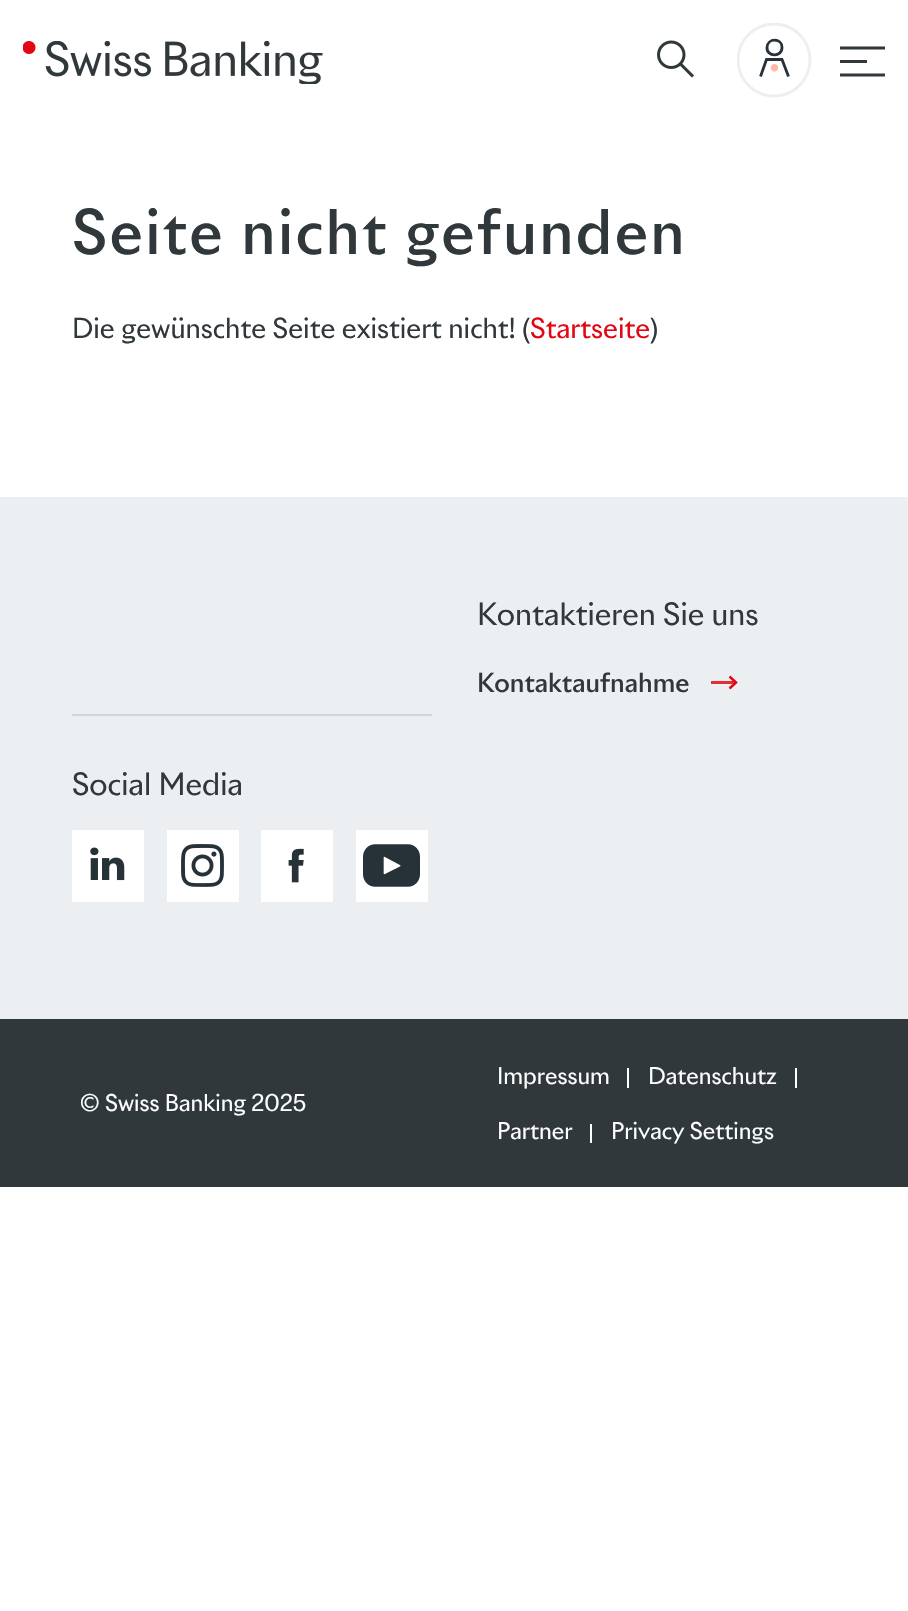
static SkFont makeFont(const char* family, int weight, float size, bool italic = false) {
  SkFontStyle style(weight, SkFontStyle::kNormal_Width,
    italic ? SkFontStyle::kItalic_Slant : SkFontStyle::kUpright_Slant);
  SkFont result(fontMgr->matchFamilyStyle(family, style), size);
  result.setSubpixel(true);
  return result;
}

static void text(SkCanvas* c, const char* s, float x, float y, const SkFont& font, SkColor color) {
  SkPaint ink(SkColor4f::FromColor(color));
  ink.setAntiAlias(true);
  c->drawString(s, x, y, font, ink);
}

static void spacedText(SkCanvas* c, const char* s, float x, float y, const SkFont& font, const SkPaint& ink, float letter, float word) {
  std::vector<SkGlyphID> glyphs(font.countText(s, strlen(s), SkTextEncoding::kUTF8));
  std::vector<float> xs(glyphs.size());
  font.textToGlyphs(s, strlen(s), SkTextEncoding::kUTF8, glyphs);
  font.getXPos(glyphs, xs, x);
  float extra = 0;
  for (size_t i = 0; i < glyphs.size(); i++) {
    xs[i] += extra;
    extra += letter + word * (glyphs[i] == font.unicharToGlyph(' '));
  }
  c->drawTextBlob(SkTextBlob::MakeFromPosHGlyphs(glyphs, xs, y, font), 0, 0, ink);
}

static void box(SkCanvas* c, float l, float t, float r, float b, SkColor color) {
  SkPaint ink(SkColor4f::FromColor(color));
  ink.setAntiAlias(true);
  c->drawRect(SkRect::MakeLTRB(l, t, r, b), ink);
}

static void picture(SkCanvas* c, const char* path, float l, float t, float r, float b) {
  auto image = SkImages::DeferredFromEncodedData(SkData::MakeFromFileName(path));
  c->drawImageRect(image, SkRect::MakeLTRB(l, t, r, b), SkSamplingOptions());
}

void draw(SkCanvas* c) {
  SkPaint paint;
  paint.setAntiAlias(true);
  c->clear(0xffffffff);
  picture(c, "img_01.png", 23, 41, 323, 84);
  picture(c, "img_02.png", 657, 40, 694, 78);
  c->save();
  c->clipRect(SkRect::MakeLTRB(737, 23, 812, 98));
  paint.setStyle(SkPaint::kStroke_Style);
  paint.setStrokeWidth(2.8f);
  paint.setColor(0xffeceff1);
  c->drawCircle(774, 60, 36, paint);
  c->restore();
  paint.setColor(0xff263238);
  c->drawPath(SkPathBuilder().moveTo(782, 47.5f).cubicTo(782, 57.5f, 766.5f, 57, 767, 47.5f).cubicTo(767.5f, 37.5f, 782, 38, 782, 47.5f).close().detach(), paint);
  paint.setStyle(SkPaint::kFill_Style);
  paint.setColor(0xffffb7a6);
  c->drawPath(SkPathBuilder().moveTo(774.5f, 71.5f).cubicTo(769.5f, 71.5f, 769.5f, 64, 774.5f, 64).cubicTo(779.5f, 64, 779.5f, 71.5f, 774.5f, 71.5f).close().detach(), paint);
  paint.setStyle(SkPaint::kStroke_Style);
  paint.setColor(0xff263238);
  c->drawPath(SkPathBuilder().moveTo(760.5f, 76.5f).lineTo(766.5f, 59.5f).lineTo(782, 59.5f).lineTo(788.5f, 76.5f).detach(), paint);
  paint.setStrokeWidth(3);
  paint.setColor(0xff30383b);
  c->drawPath(SkPathBuilder().moveTo(840, 61.5f).lineTo(867, 61.5f).moveTo(840, 48).lineTo(885, 48).close().moveTo(840, 75).lineTo(885, 75).detach(), paint);
  SkFont face1 = makeFont("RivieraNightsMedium", 500, 60);
  paint.setStyle(SkPaint::kFill_Style);
  spacedText(c, "Seite nicht gefunden", 72, 254, face1, paint, 2.25f, 0);
  SkFont face2 = makeFont("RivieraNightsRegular", 400, 27);
  text(c, "Die gewünschte Seite existiert nicht! (", 72, 338, face2, 0xff30383b);
  text(c, "Startseite", 530, 338, face2, 0xffe30613);
  text(c, ")", 650, 338, face2, 0xff30383b);
  box(c, 0, 497, 908, 1019, 0xffeceff1);
  SkFont face3 = makeFont("RivieraNightsRegular", 400, 30);
  text(c, "Kontaktieren Sie uns", 477, 625, face3, 0xff30383b);
  SkFont face4 = makeFont("RivieraNightsMedium", 500, 25.5f);
  text(c, "Kontaktaufnahme", 477, 692, face4, 0xff30383b);
  box(c, 711, 681, 736, 684, 0xffe52d38);
  paint.setStyle(SkPaint::kStroke_Style);
  paint.setStrokeWidth(2.5f);
  paint.setColor(0xffe30613);
  c->drawPath(SkPathBuilder().moveTo(729.5f, 676.5f).lineTo(736, 682.5f).lineTo(729.5f, 688.5f).detach(), paint);
  box(c, 72, 714, 432, 716, 0xffd4d7d9);
  text(c, "Social Media", 72, 795, face3, 0xff30383b);
  box(c, 72, 830, 144, 902, 0xffffffff);
  picture(c, "img_03.png", 90, 847, 125, 881);
  box(c, 167, 830, 239, 902, 0xffffffff);
  picture(c, "img_04.png", 181, 844, 224, 887);
  box(c, 261, 830, 333, 902, 0xffffffff);
  picture(c, "img_05.png", 288, 848, 304, 883);
  box(c, 356, 830, 428, 902, 0xffffffff);
  picture(c, "img_06.png", 363, 844, 420, 887);
  box(c, 0, 1019, 908, 1187, 0xff30383b);
  SkFont face5 = makeFont("RivieraNightsRegular", 400, 22.5f);
  text(c, "© Swiss Banking 2025", 80, 1111, face5, 0xffffffff);
  text(c, "Impressum", 497, 1084, face5, 0xffffffff);
  box(c, 627, 1068, 629, 1088, 0xffffffff);
  text(c, "Datenschutz", 648, 1084, face5, 0xffffffff);
  box(c, 795, 1068, 797, 1088, 0xffffffff);
  text(c, "Partner", 497, 1139, face5, 0xffffffff);
  box(c, 590, 1124, 592, 1143, 0xffffffff);
  text(c, "Privacy Settings", 611, 1139, face5, 0xffffffff);
}
